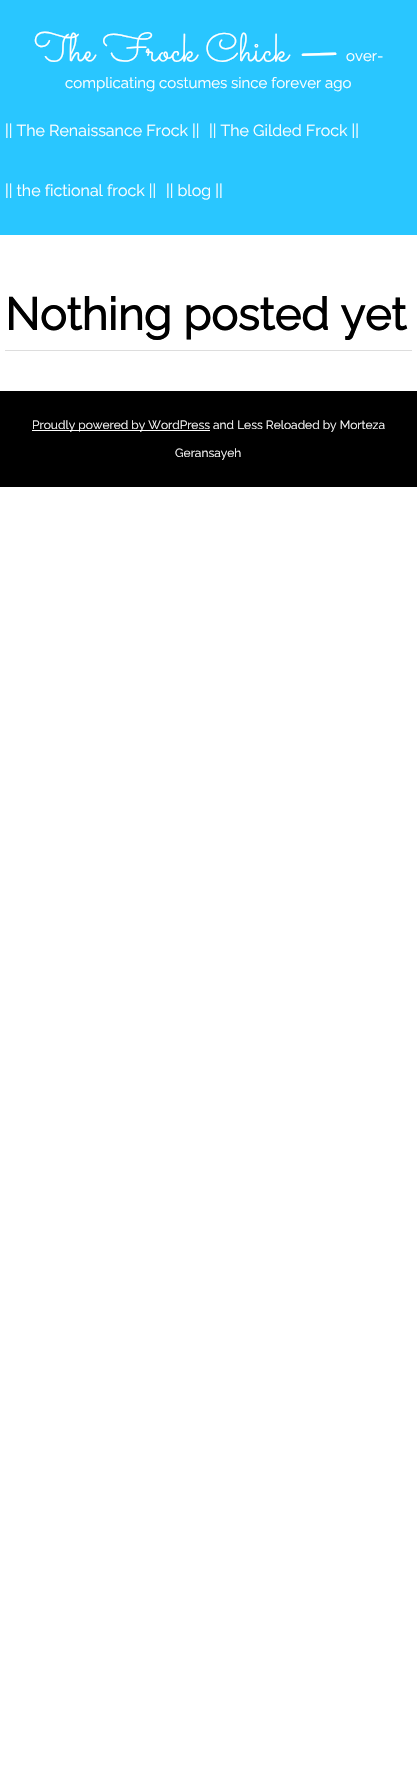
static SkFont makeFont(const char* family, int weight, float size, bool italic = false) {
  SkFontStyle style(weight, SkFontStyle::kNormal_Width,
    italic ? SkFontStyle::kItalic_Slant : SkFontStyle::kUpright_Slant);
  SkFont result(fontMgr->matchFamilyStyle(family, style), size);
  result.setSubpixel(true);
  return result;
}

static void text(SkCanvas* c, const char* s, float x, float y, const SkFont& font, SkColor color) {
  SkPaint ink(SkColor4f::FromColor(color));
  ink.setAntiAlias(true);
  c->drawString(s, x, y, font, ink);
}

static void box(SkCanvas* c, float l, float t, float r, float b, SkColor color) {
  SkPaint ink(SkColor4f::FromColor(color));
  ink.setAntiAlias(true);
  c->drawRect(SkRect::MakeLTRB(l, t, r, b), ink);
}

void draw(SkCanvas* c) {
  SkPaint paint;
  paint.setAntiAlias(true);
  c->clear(0xffffffff);
  box(c, 0, 0, 417, 235, 0xff29c6ff);
  SkFont face1 = makeFont("Sacramento", 400, 40);
  text(c, "The Frock Chick", 34, 61, face1, 0xffffffff);
  SkFont face2 = makeFont("Sacramento", 700, 40);
  text(c, "—", 297, 61, face2, 0xffffffff);
  SkFont face3 = makeFont("Raleway", 100, 15);
  text(c, "over-", 346, 61, face3, 0xffffffff);
  text(c, "complicating costumes since forever ago", 65, 88, face3, 0xffffffff);
  SkFont face4 = makeFont("Raleway", 100, 16);
  text(c, "|| The Renaissance Frock ||", 5, 136, face4, 0xffffffff);
  text(c, "|| The Gilded Frock ||", 209, 136, face4, 0xffffffff);
  text(c, "|| the fictional frock ||", 5, 196, face4, 0xffffffff);
  text(c, "|| blog ||", 166, 196, face4, 0xffffffff);
  box(c, 5, 350, 412, 351, 0xffdddddd);
  SkFont face5 = makeFont("Raleway", 700, 45);
  text(c, "Nothing posted yet", 5, 330, face5, 0xff000000);
  box(c, 0, 391, 417, 487, 0xff000000);
  box(c, 32, 430, 210, 431, 0xffffffff);
  SkFont face6 = makeFont("Raleway", 100, 12);
  text(c, "Proudly powered by WordPress and Less Reloaded by Morteza", 32, 429, face6, 0xffffffff);
  text(c, "Geransayeh", 175, 457, face6, 0xffffffff);
}
